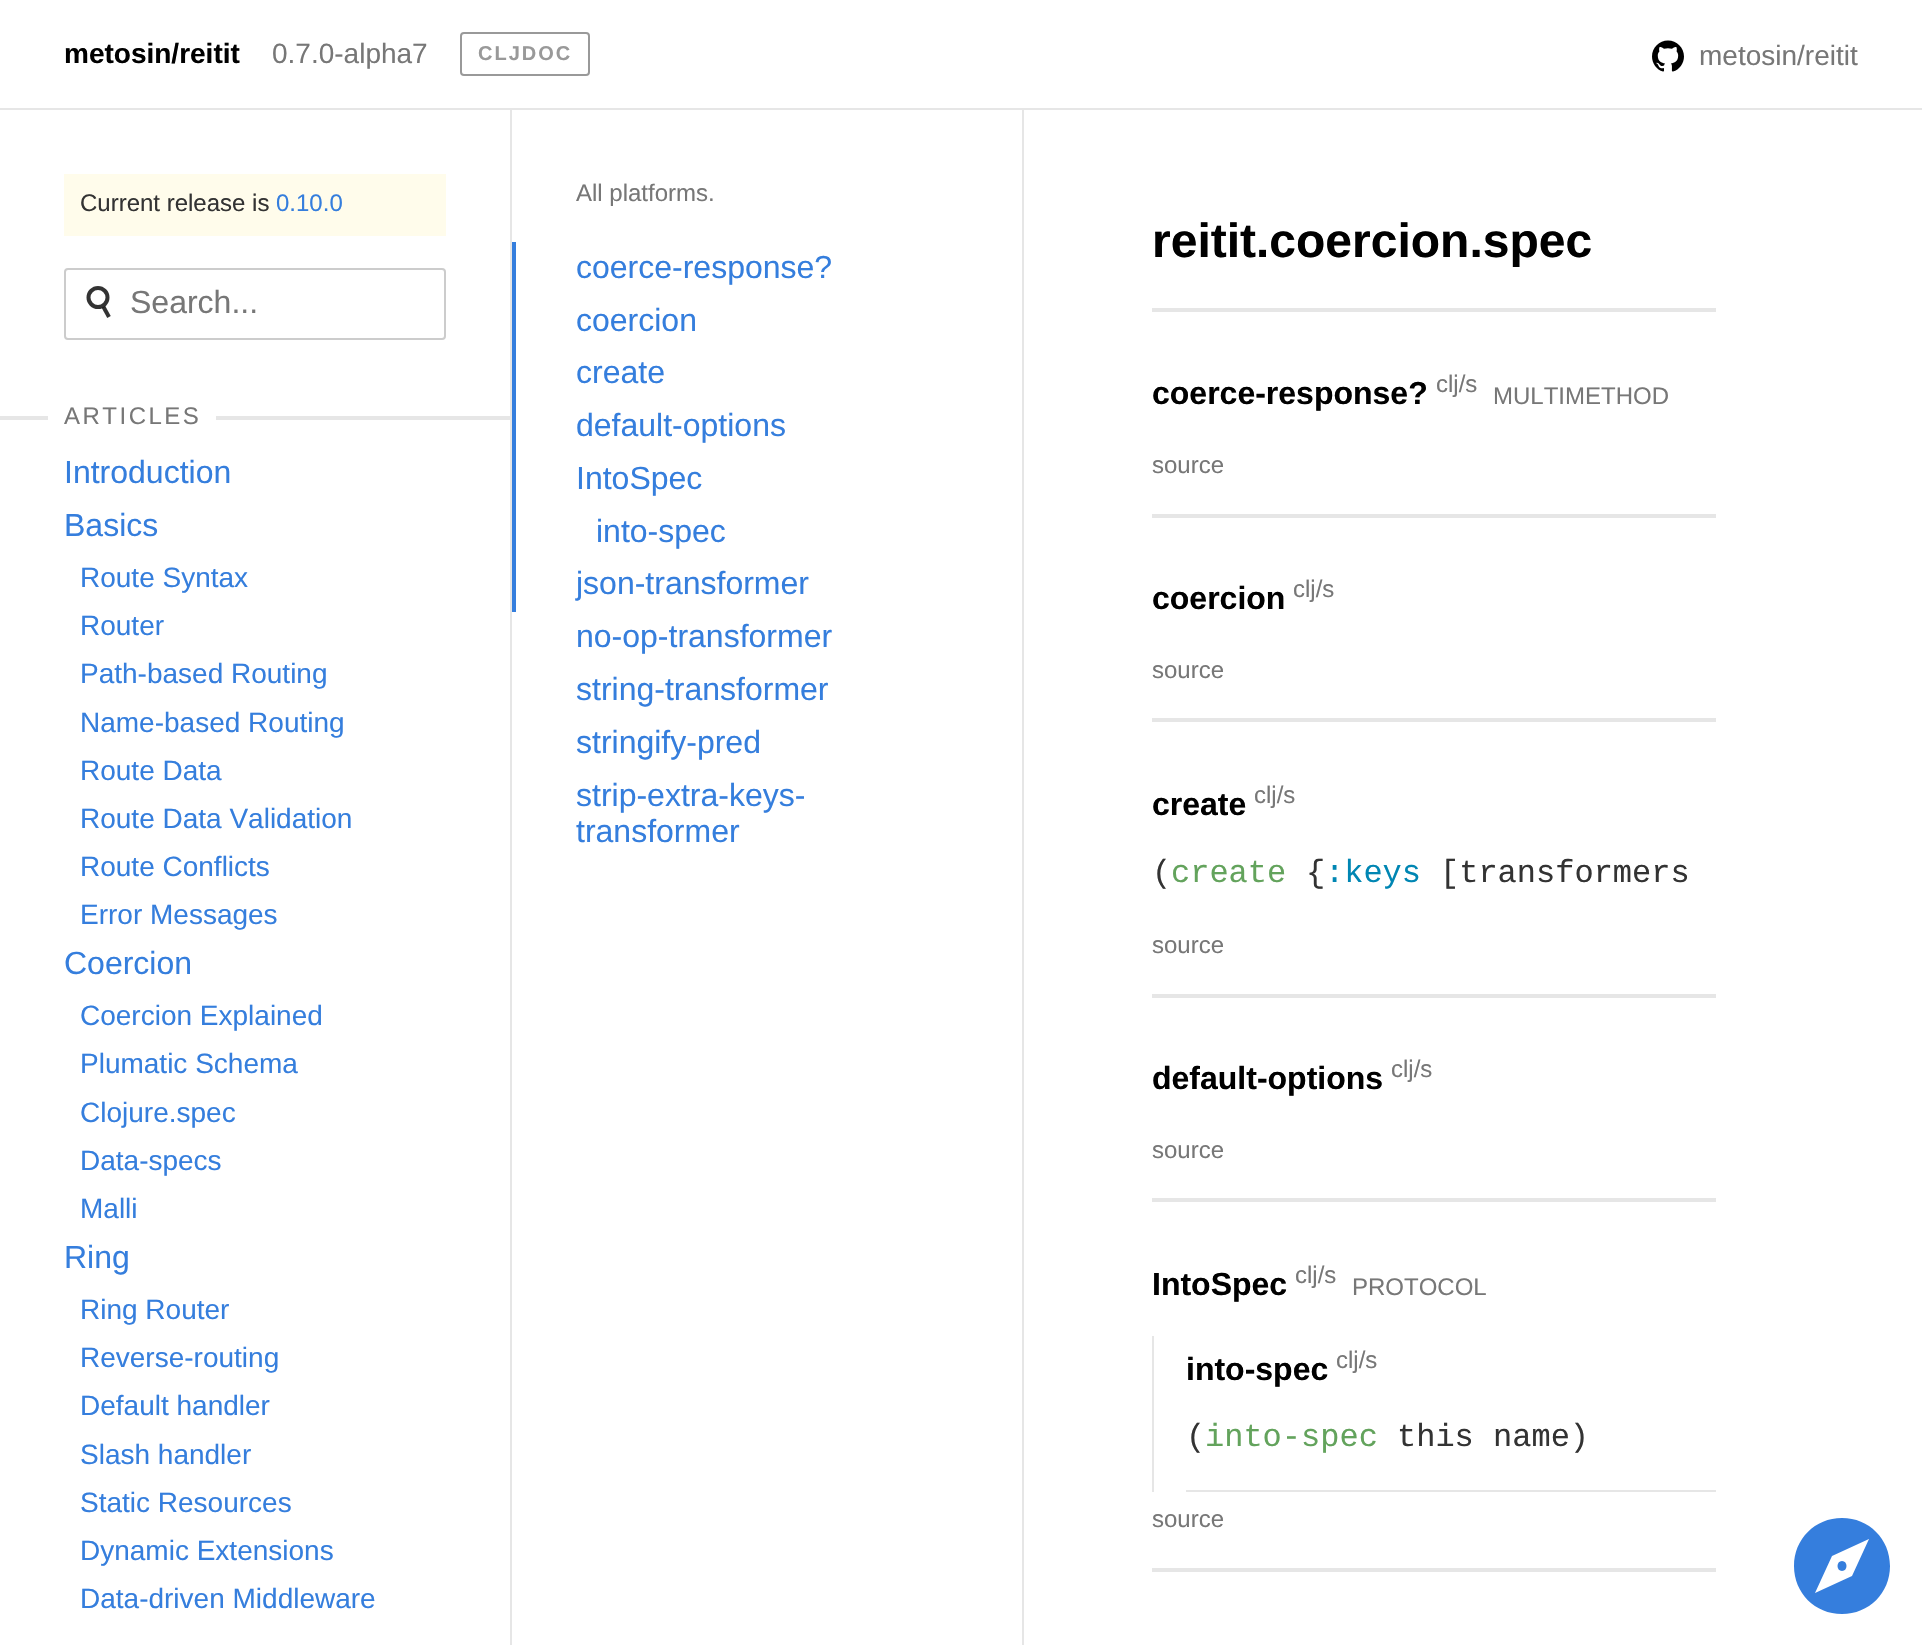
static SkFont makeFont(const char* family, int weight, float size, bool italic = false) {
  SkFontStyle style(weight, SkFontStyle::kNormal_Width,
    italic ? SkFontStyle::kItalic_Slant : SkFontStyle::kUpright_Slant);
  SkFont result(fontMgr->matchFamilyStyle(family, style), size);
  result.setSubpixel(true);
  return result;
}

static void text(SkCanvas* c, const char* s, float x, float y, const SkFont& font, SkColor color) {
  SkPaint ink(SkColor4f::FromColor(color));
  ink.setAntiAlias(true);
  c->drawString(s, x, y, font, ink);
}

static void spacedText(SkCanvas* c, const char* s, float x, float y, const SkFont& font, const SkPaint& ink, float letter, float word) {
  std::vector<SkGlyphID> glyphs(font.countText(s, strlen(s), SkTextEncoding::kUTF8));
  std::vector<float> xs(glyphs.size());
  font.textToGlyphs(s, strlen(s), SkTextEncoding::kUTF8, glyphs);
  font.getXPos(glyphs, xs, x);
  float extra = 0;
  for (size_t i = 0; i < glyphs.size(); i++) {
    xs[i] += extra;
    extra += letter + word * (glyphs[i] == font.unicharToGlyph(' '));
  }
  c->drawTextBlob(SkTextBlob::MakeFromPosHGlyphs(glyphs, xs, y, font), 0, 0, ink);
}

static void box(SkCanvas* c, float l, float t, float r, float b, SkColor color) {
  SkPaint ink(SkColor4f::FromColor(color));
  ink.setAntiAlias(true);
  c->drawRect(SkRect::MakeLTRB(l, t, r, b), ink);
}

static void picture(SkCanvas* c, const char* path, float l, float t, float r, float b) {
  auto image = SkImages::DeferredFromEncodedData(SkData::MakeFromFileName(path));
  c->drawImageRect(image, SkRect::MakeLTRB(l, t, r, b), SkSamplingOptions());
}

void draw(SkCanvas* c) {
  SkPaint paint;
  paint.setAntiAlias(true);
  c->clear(0xffffffff);
  box(c, 0, 108, 1922, 110, 0xffe6e6e6);
  SkFont face1 = makeFont("Liberation Sans", 700, 28);
  text(c, "metosin/reitit", 64, 63, face1, 0xff000000);
  SkFont face2 = makeFont("Liberation Sans", 400, 28);
  text(c, "0.7.0-alpha7", 272, 63, face2, 0xff777777);
  paint.setStyle(SkPaint::kStroke_Style);
  paint.setStrokeWidth(2);
  paint.setColor(0xff999999);
  c->drawRoundRect(SkRect::MakeLTRB(461, 33, 589, 75), 3, 3, paint);
  SkFont face3 = makeFont("Liberation Sans", 700, 20);
  paint.setStyle(SkPaint::kFill_Style);
  spacedText(c, "CLJDOC", 478, 60, face3, paint, 2, 0);
  picture(c, "img_01.png", 1652, 40, 1684, 72);
  text(c, "metosin/reitit", 1699, 65, face2, 0xff777777);
  box(c, 510, 110, 512, 1645, 0xffe6e6e6);
  box(c, 64, 174, 446, 236, 0xfffffceb);
  SkFont face4 = makeFont("Liberation Sans", 400, 24);
  text(c, "Current release is", 80, 211, face4, 0xff333333);
  text(c, "0.10.0", 276, 211, face4, 0xff357edd);
  paint.setStyle(SkPaint::kStroke_Style);
  paint.setColor(0xffcccccc);
  c->drawRoundRect(SkRect::MakeLTRB(65, 269, 445, 339), 3, 3, paint);
  paint.setStrokeWidth(4);
  paint.setColor(0xff333333);
  c->drawCircle(98, 297.5f, 9.5f, paint);
  paint.setColor(0xcc000000);
  c->drawPath(SkPathBuilder().moveTo(103.5f, 307).lineTo(109, 317).detach(), paint);
  SkFont face5 = makeFont("Liberation Sans", 400, 32);
  text(c, "Search...", 130, 313, face5, 0xff777777);
  box(c, 0, 416, 510, 420, 0xffe6e6e6);
  box(c, 48, 416, 216, 420, 0xffffffff);
  paint.setStyle(SkPaint::kFill_Style);
  paint.setColor(0xff777777);
  spacedText(c, "ARTICLES", 64, 424, face4, paint, 2.5f, 0);
  text(c, "Introduction", 64, 483, face5, 0xff357edd);
  text(c, "Basics", 64, 536, face5, 0xff357edd);
  text(c, "Route Syntax", 80, 587, face2, 0xff357edd);
  text(c, "Router", 80, 635, face2, 0xff357edd);
  text(c, "Path-based Routing", 80, 683, face2, 0xff357edd);
  text(c, "Name-based Routing", 80, 732, face2, 0xff357edd);
  text(c, "Route Data", 80, 780, face2, 0xff357edd);
  text(c, "Route Data Validation", 80, 828, face2, 0xff357edd);
  text(c, "Route Conflicts", 80, 876, face2, 0xff357edd);
  text(c, "Error Messages", 80, 924, face2, 0xff357edd);
  text(c, "Coercion", 64, 974, face5, 0xff357edd);
  text(c, "Coercion Explained", 80, 1025, face2, 0xff357edd);
  text(c, "Plumatic Schema", 80, 1073, face2, 0xff357edd);
  text(c, "Clojure.spec", 80, 1122, face2, 0xff357edd);
  text(c, "Data-specs", 80, 1170, face2, 0xff357edd);
  text(c, "Malli", 80, 1218, face2, 0xff357edd);
  text(c, "Ring", 64, 1268, face5, 0xff357edd);
  text(c, "Ring Router", 80, 1319, face2, 0xff357edd);
  text(c, "Reverse-routing", 80, 1367, face2, 0xff357edd);
  text(c, "Default handler", 80, 1415, face2, 0xff357edd);
  text(c, "Slash handler", 80, 1464, face2, 0xff357edd);
  text(c, "Static Resources", 80, 1512, face2, 0xff357edd);
  text(c, "Dynamic Extensions", 80, 1560, face2, 0xff357edd);
  text(c, "Data-driven Middleware", 80, 1608, face2, 0xff357edd);
  box(c, 1022, 110, 1024, 1645, 0xffe6e6e6);
  text(c, "All platforms.", 576, 201, face4, 0xff777777);
  box(c, 512, 242, 516, 612, 0xff357edd);
  text(c, "coerce-response?", 576, 278, face5, 0xff357edd);
  text(c, "coercion", 576, 331, face5, 0xff357edd);
  text(c, "create", 576, 383, face5, 0xff357edd);
  text(c, "default-options", 576, 436, face5, 0xff357edd);
  text(c, "IntoSpec", 576, 489, face5, 0xff357edd);
  text(c, "into-spec", 596, 542, face5, 0xff357edd);
  text(c, "json-transformer", 576, 594, face5, 0xff357edd);
  text(c, "no-op-transformer", 576, 647, face5, 0xff357edd);
  text(c, "string-transformer", 576, 700, face5, 0xff357edd);
  text(c, "stringify-pred", 576, 753, face5, 0xff357edd);
  text(c, "strip-extra-keys-", 576, 806, face5, 0xff357edd);
  text(c, "transformer", 576, 842, face5, 0xff357edd);
  SkFont face6 = makeFont("Liberation Sans", 700, 48);
  text(c, "reitit.coercion.spec", 1152, 257, face6, 0xff000000);
  box(c, 1152, 308, 1716, 312, 0xffe6e6e6);
  SkFont face7 = makeFont("Liberation Sans", 700, 32);
  text(c, "coerce-response?", 1152, 404, face7, 0xff000000);
  text(c, "clj/s", 1436, 392, face4, 0xff777777);
  text(c, "MULTIMETHOD", 1493, 404, face4, 0xff777777);
  text(c, "source", 1152, 473, face4, 0xff777777);
  box(c, 1152, 514, 1716, 518, 0xffe6e6e6);
  text(c, "coercion", 1152, 609, face7, 0xff000000);
  text(c, "clj/s", 1293, 597, face4, 0xff777777);
  text(c, "source", 1152, 678, face4, 0xff777777);
  box(c, 1152, 718, 1716, 722, 0xffe6e6e6);
  text(c, "create", 1152, 815, face7, 0xff000000);
  text(c, "clj/s", 1254, 803, face4, 0xff777777);
  SkFont face8 = makeFont("Liberation Mono", 400, 32);
  text(c, "(", 1152, 882, face8, 0xff333333);
  text(c, "create", 1171, 882, face8, 0xff63a35c);
  text(c, "{", 1306, 882, face8, 0xff333333);
  text(c, ":keys", 1325, 882, face8, 0xff0086b3);
  text(c, "[transformers", 1440, 882, face8, 0xff333333);
  text(c, "source", 1152, 953, face4, 0xff777777);
  box(c, 1152, 994, 1716, 998, 0xffe6e6e6);
  text(c, "default-options", 1152, 1089, face7, 0xff000000);
  text(c, "clj/s", 1391, 1077, face4, 0xff777777);
  text(c, "source", 1152, 1158, face4, 0xff777777);
  box(c, 1152, 1198, 1716, 1202, 0xffe6e6e6);
  text(c, "IntoSpec", 1152, 1295, face7, 0xff000000);
  text(c, "clj/s", 1295, 1283, face4, 0xff777777);
  text(c, "PROTOCOL", 1352, 1295, face4, 0xff777777);
  box(c, 1152, 1336, 1154, 1492, 0xffe6e6e6);
  box(c, 1186, 1490, 1716, 1492, 0xffe6e6e6);
  text(c, "into-spec", 1186, 1380, face7, 0xff000000);
  text(c, "clj/s", 1336, 1368, face4, 0xff777777);
  text(c, "(", 1186, 1446, face8, 0xff333333);
  text(c, "into-spec", 1205, 1446, face8, 0xff63a35c);
  text(c, "this name)", 1397, 1446, face8, 0xff333333);
  text(c, "source", 1152, 1527, face4, 0xff777777);
  box(c, 1152, 1568, 1716, 1572, 0xffe6e6e6);
  paint.setColor(0xff357edd);
  c->drawPath(SkPathBuilder().moveTo(1842, 1614).cubicTo(1815, 1614, 1794, 1593, 1794, 1566).cubicTo(1794, 1539, 1815, 1518, 1842, 1518).cubicTo(1869, 1518, 1890, 1539, 1890, 1566).cubicTo(1890, 1593, 1869, 1614, 1842, 1614).close().moveTo(1832, 1556).lineTo(1815, 1593).lineTo(1852, 1576).lineTo(1869, 1539).close().moveTo(1842, 1571).cubicTo(1836, 1571, 1836, 1561, 1842, 1561).cubicTo(1848, 1561, 1848, 1571, 1842, 1571).close().detach(), paint);
}
